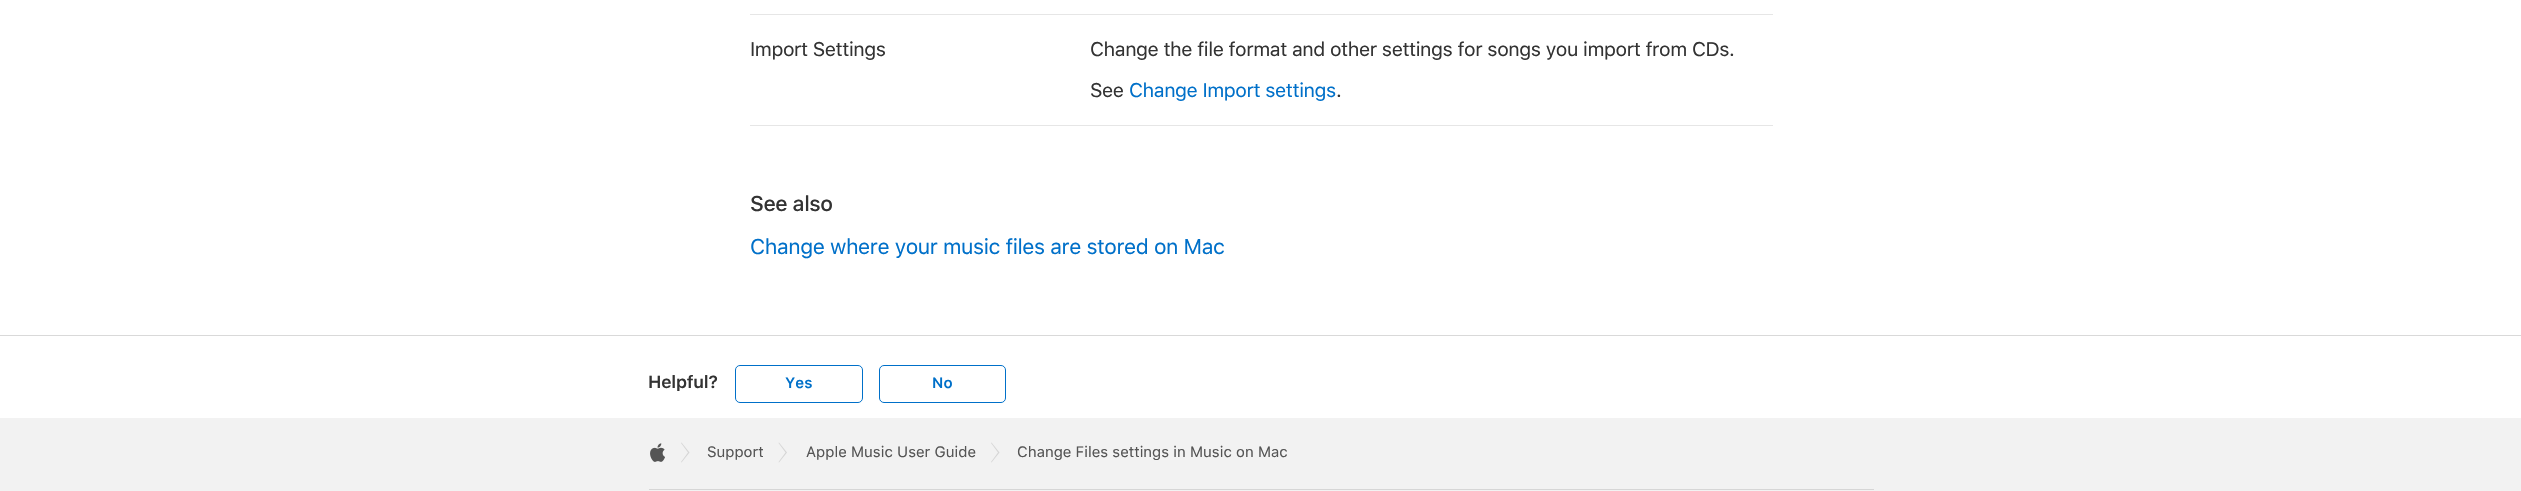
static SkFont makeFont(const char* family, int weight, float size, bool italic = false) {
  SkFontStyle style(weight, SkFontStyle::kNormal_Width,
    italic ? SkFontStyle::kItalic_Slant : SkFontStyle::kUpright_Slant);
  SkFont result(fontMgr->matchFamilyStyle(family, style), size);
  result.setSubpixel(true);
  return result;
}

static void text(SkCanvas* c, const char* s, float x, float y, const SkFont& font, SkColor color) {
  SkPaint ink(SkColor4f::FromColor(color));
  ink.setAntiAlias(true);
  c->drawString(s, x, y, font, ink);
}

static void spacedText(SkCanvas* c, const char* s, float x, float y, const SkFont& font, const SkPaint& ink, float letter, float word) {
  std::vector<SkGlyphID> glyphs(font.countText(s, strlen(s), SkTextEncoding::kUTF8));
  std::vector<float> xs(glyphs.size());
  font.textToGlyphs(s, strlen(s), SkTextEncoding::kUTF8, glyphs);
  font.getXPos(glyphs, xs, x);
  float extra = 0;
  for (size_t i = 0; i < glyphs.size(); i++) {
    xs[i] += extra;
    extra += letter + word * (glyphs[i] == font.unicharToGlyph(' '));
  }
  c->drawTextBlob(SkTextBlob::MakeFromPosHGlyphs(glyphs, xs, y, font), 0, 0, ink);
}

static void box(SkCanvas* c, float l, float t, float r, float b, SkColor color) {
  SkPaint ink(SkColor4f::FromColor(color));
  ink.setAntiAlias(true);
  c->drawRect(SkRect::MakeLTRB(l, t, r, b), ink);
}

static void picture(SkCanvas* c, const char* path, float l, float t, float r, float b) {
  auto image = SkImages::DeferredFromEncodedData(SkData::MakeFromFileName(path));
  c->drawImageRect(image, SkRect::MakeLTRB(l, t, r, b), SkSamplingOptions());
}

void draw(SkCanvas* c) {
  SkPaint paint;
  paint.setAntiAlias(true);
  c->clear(0xffffffff);
  box(c, 750, 14, 1773, 15, 0xffe6e6e6);
  box(c, 750, 125, 1773, 126, 0xffe6e6e6);
  SkFont face1 = makeFont("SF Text", 400, 19.6f);
  paint.setColor(0xff333333);
  spacedText(c, "Import Settings", 750, 56, face1, paint, -0.45f, 0);
  spacedText(c, "Change the file format and other settings for songs you import from CDs.", 1090, 56, face1, paint, -0.45f, 0);
  spacedText(c, "See", 1090, 97, face1, paint, -0.45f, 0);
  paint.setColor(0xff0070c9);
  spacedText(c, "Change Import settings", 1129, 97, face1, paint, -0.45f, 0);
  paint.setColor(0xff333333);
  spacedText(c, ".", 1336, 97, face1, paint, -0.45f, 0);
  SkFont face2 = makeFont("SF Text", 500, 21.25f);
  spacedText(c, "See also", 750, 211, face2, paint, -0.45f, 0);
  SkFont face3 = makeFont("SF Text", 400, 21.25f);
  paint.setColor(0xff0070c9);
  spacedText(c, "Change where your music files are stored on Mac", 750, 254, face3, paint, -0.45f, 0);
  box(c, 0, 335, 2521, 336, 0xffd9d9d9);
  SkFont face4 = makeFont("SF Text", 600, 17.5f);
  paint.setColor(0xff333333);
  spacedText(c, "Helpful?", 648, 388, face4, paint, -0.25f, 0);
  paint.setStyle(SkPaint::kStroke_Style);
  paint.setStrokeWidth(1);
  paint.setColor(0xff0070c9);
  c->drawRoundRect(SkRect::MakeLTRB(735.5f, 365.5f, 862.5f, 402.5f), 4.5f, 4.5f, paint);
  SkFont face5 = makeFont("SF Text", 600, 15);
  text(c, "Yes", 785, 388, face5, 0xff0070c9);
  c->drawRoundRect(SkRect::MakeLTRB(879.5f, 365.5f, 1005.5f, 402.5f), 4.5f, 4.5f, paint);
  text(c, "No", 932, 388, face5, 0xff0070c9);
  box(c, 0, 418, 2521, 491, 0xfff2f2f2);
  picture(c, "img_01.png", 650, 443, 665, 462);
  paint.setStyle(SkPaint::kFill_Style);
  paint.setColor(0xffd6d6d6);
  c->drawPath(SkPathBuilder().moveTo(681.5f, 442.5f).lineTo(689.5f, 452.5f).lineTo(681.5f, 462.5f).lineTo(681, 462).lineTo(688, 452.5f).lineTo(681, 443).close().detach(), paint);
  SkFont face6 = makeFont("SF Text", 400, 15);
  text(c, "Support", 707, 457, face6, 0xff555555);
  c->drawPath(SkPathBuilder().moveTo(779, 442.5f).lineTo(787, 452.5f).lineTo(779, 462.5f).lineTo(778.5f, 462).lineTo(785.5f, 452.5f).lineTo(778.5f, 443).close().detach(), paint);
  text(c, "Apple Music User Guide", 806, 457, face6, 0xff555555);
  c->drawPath(SkPathBuilder().moveTo(991.5f, 442.5f).lineTo(999.5f, 452.5f).lineTo(991.5f, 462.5f).lineTo(991, 462).lineTo(998, 452.5f).lineTo(991, 443).close().detach(), paint);
  text(c, "Change Files settings in Music on Mac", 1017, 457, face6, 0xff555555);
  box(c, 649, 489, 1874, 490, 0xffd6d6d6);
}
